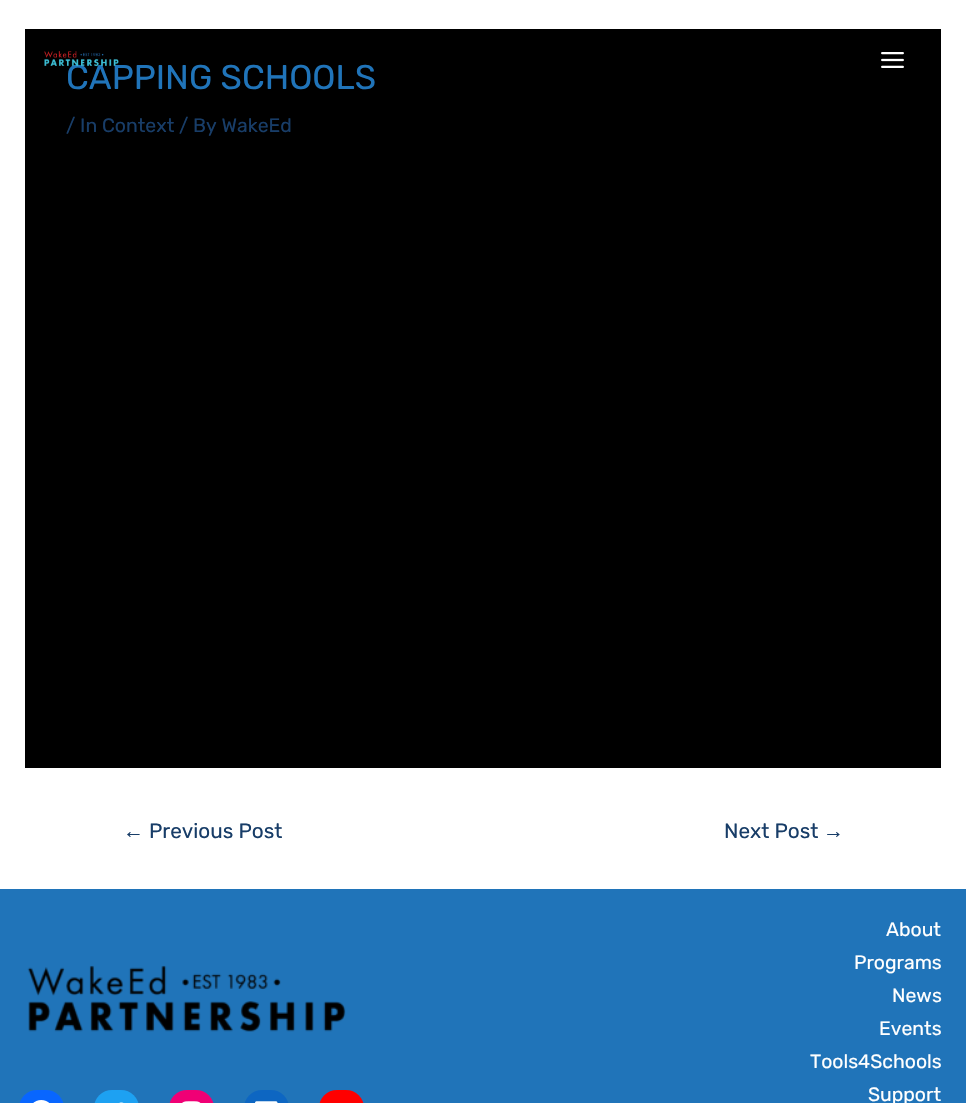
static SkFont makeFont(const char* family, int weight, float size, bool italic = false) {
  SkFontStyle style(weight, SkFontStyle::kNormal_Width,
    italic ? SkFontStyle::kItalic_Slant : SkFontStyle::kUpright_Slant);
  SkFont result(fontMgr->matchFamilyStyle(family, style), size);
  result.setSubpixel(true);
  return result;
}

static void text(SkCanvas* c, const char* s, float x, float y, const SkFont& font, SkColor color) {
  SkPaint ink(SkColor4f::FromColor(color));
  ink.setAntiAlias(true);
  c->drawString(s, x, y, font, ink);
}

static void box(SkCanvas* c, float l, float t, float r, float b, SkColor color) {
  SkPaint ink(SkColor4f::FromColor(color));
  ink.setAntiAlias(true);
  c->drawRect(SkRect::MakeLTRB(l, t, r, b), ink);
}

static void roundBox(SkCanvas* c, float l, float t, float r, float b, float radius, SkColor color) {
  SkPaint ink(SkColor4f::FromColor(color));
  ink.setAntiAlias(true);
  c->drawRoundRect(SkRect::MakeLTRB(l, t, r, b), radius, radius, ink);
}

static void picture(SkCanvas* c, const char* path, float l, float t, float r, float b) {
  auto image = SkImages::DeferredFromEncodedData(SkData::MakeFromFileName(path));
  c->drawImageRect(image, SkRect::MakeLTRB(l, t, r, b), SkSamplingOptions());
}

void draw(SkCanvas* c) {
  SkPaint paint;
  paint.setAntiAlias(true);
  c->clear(0xffffffff);
  box(c, 25, 29, 941, 768, 0xff000000);
  SkFont face1 = makeFont("Rubik", 400, 34.25f);
  text(c, "CAPPING SCHOOLS", 66, 89, face1, 0xff2074b9);
  picture(c, "img_01.png", 44, 51, 119, 67);
  picture(c, "img_02.png", 881, 52, 904, 68);
  SkFont face2 = makeFont("Rubik", 400, 19.4f);
  text(c, "/ In Context / By WakeEd", 66, 132, face2, 0xff183d68);
  SkFont face3 = makeFont("Liberation Sans", 400, 20.75f);
  text(c, "←", 123, 838, face3, 0xff183d68);
  SkFont face4 = makeFont("Rubik", 400, 20.75f);
  text(c, "Previous Post", 149, 838, face4, 0xff183d68);
  text(c, "Next Post", 724, 838, face4, 0xff183d68);
  text(c, "→", 823, 838, face3, 0xff183d68);
  box(c, 0, 889, 966, 1103, 0xff2074b9);
  picture(c, "img_03.png", 27, 965, 346, 1032);
  roundBox(c, 19, 1090, 64, 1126, 22.5f, 0xff0866ff);
  picture(c, "img_04.png", 33, 1100, 50, 1103);
  roundBox(c, 94, 1090, 139, 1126, 22.5f, 0xff1da1f2);
  picture(c, "img_05.png", 119, 1102, 124, 1103);
  roundBox(c, 169, 1090, 214, 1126, 22.5f, 0xfff00075);
  picture(c, "img_06.png", 182, 1101, 201, 1103);
  roundBox(c, 244, 1090, 289, 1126, 22.5f, 0xff0d66c2);
  picture(c, "img_07.png", 255, 1101, 278, 1103);
  roundBox(c, 319, 1090, 364, 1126, 22.5f, 0xffff0000);
  text(c, "About", 886, 936, face2, 0xffffffff);
  text(c, "Programs", 854, 969, face2, 0xffffffff);
  text(c, "News", 892, 1002, face2, 0xffffffff);
  text(c, "Events", 879, 1035, face2, 0xffffffff);
  text(c, "Tools4Schools", 810, 1068, face2, 0xffffffff);
  text(c, "Support", 868, 1101, face2, 0xffffffff);
}
